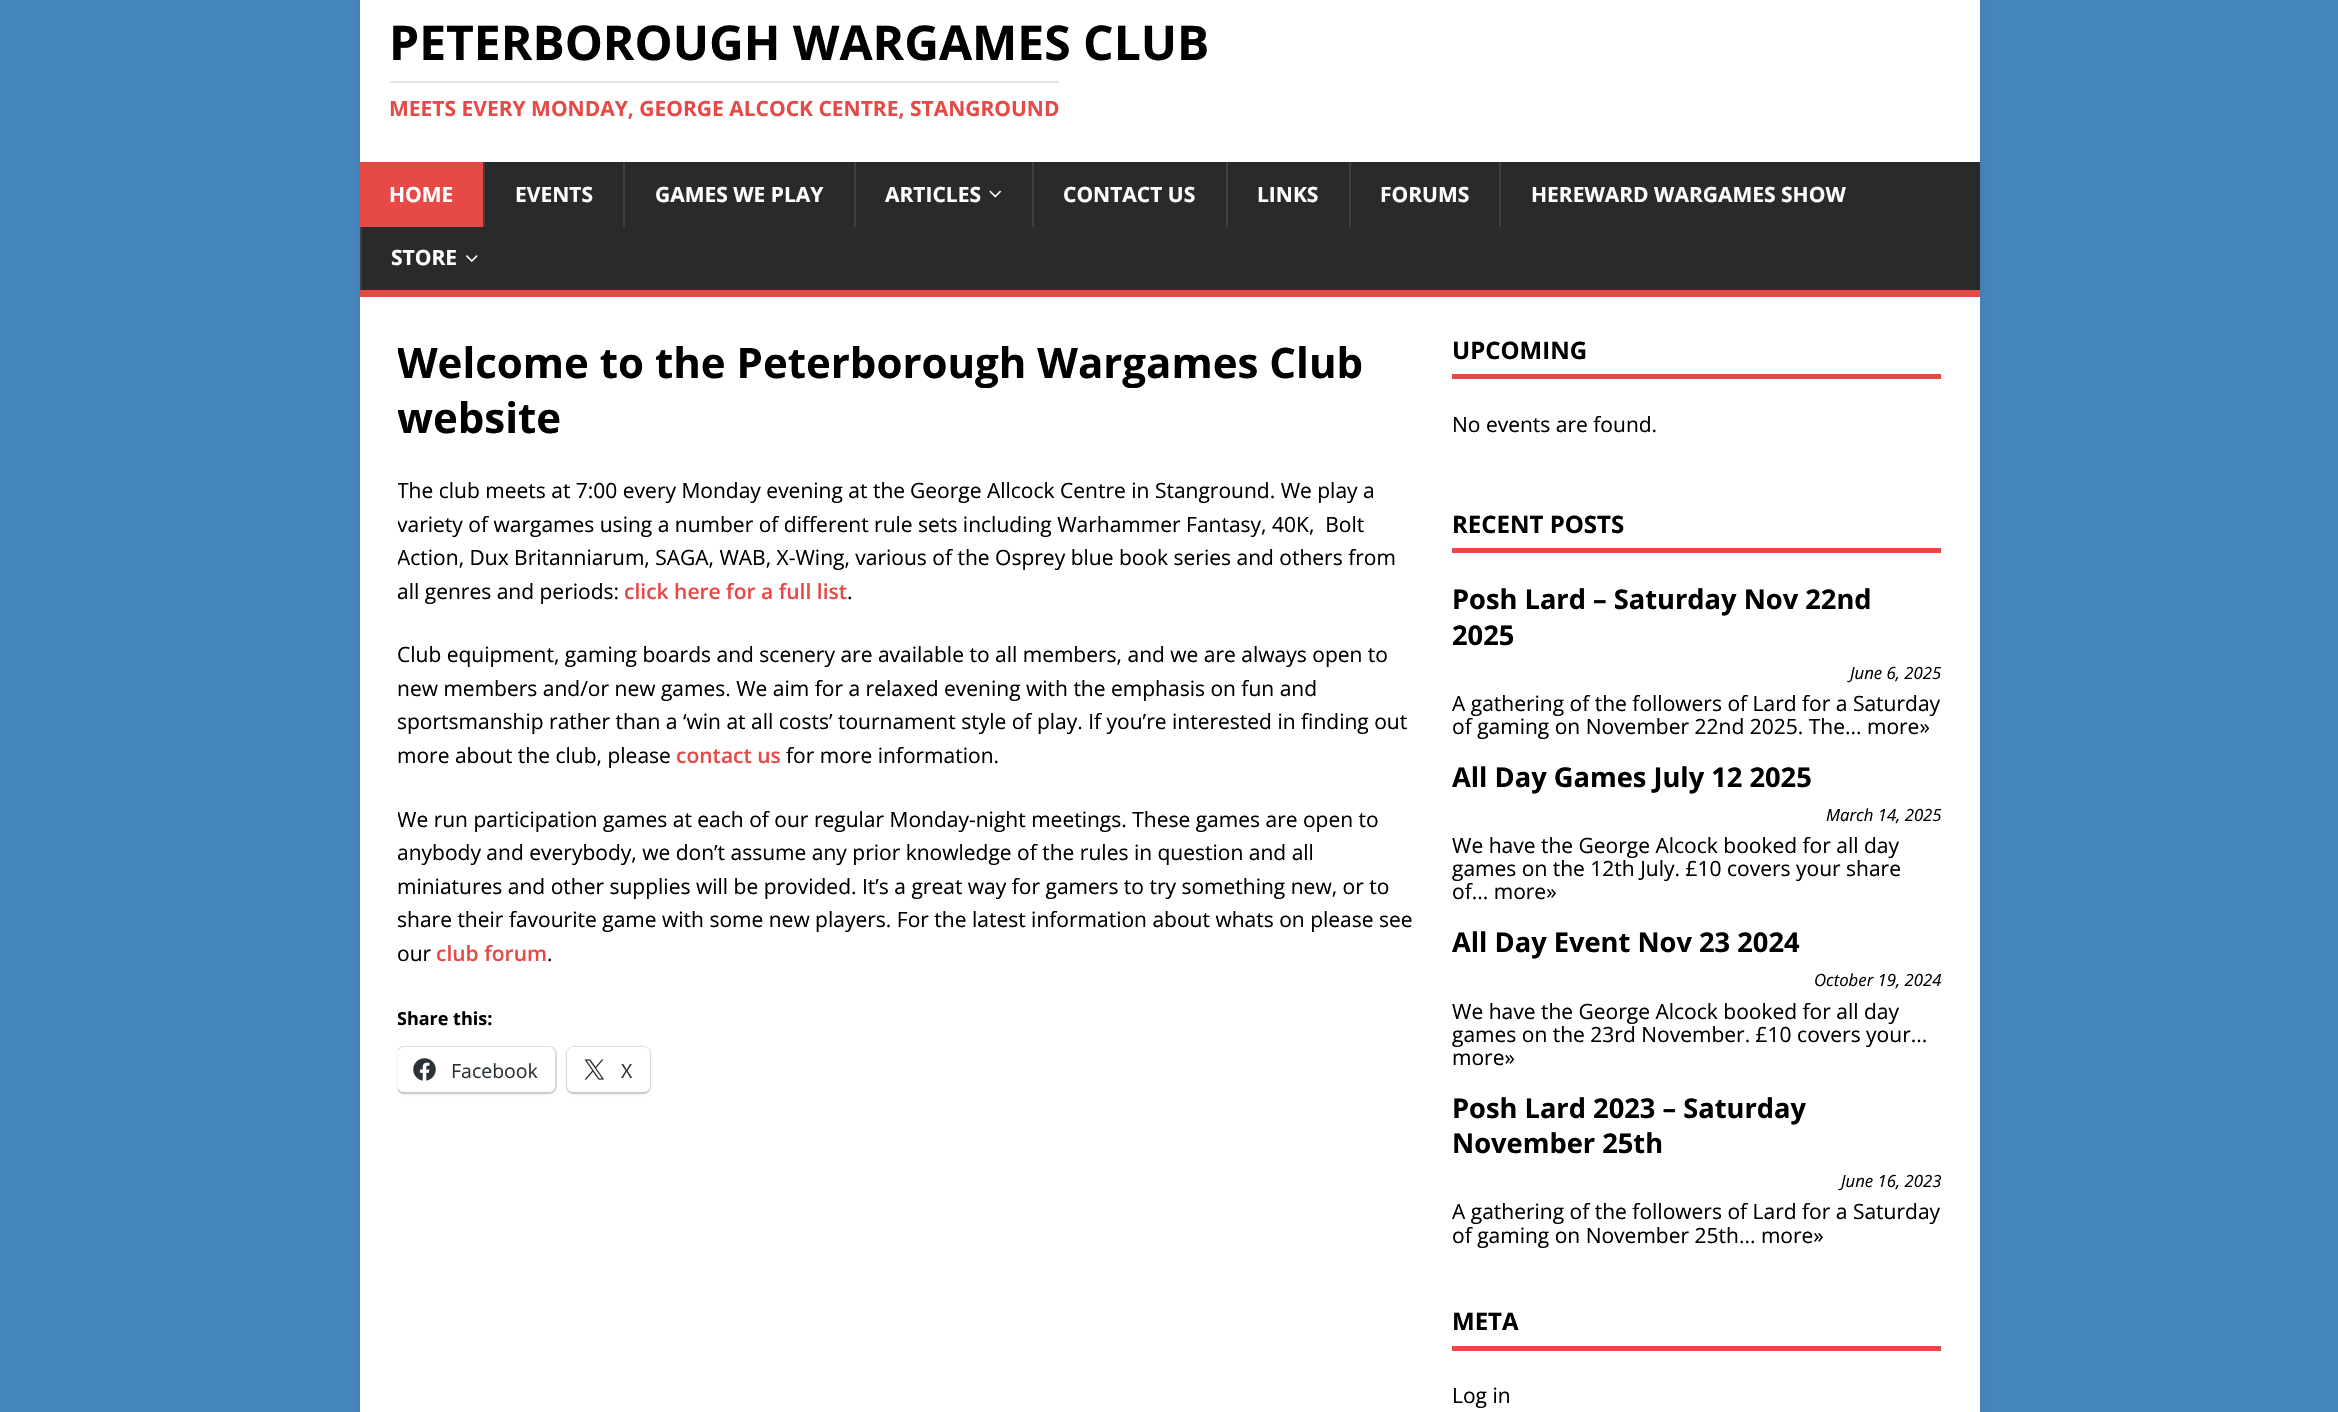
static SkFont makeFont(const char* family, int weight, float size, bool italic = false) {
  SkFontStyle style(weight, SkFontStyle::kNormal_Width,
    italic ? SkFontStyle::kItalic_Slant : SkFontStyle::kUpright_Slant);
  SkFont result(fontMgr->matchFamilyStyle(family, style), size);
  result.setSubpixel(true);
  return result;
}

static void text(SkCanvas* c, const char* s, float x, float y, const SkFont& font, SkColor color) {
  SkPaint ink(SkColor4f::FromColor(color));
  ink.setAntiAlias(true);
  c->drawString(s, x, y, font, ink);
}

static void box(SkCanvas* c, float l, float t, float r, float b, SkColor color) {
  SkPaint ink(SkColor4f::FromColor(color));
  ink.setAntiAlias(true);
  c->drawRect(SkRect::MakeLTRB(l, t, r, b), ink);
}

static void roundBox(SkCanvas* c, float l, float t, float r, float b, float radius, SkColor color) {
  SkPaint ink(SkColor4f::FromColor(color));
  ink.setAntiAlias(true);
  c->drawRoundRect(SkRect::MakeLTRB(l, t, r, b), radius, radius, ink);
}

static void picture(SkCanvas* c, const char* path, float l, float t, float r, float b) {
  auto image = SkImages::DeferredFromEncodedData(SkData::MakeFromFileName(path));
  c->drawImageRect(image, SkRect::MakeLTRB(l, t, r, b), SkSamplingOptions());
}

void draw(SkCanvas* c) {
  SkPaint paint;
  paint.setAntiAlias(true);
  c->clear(0xff4687bf);
  paint.setColor(0x2b323232);
  paint.setMaskFilter(SkMaskFilter::MakeBlur(kNormal_SkBlurStyle, 7.5f));
  c->drawRect(SkRect::MakeLTRB(360, -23, 1980, 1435), paint);
  paint.setMaskFilter(nullptr);
  box(c, 360, 0, 1980, 162, 0xffffffff);
  SkFont face1 = makeFont("Open Sans", 700, 48);
  text(c, "PETERBOROUGH WARGAMES CLUB", 389, 60, face1, 0xff000000);
  box(c, 390, 81, 1059, 83, 0xffe5e5e5);
  SkFont face2 = makeFont("Open Sans", 700, 21);
  text(c, "MEETS EVERY MONDAY, GEORGE ALCOCK CENTRE, STANGROUND", 389, 116, face2, 0xffe64946);
  box(c, 362, 162, 1980, 290, 0xff2a2a2a);
  box(c, 360, 290, 1980, 297, 0xffe64946);
  box(c, 360, 162, 483, 227, 0xffe64946);
  text(c, "HOME", 389, 202, face2, 0xffffffff);
  box(c, 483, 162, 485, 227, 0xff3f3f3f);
  text(c, "EVENTS", 515, 202, face2, 0xffffffff);
  box(c, 623, 162, 625, 227, 0xff3f3f3f);
  text(c, "GAMES WE PLAY", 655, 202, face2, 0xffffffff);
  box(c, 854, 162, 856, 227, 0xff3f3f3f);
  text(c, "ARTICLES", 885, 202, face2, 0xffffffff);
  picture(c, "img_01.png", 989, 190, 1002, 198);
  box(c, 1032, 162, 1034, 227, 0xff3f3f3f);
  text(c, "CONTACT US", 1063, 202, face2, 0xffffffff);
  box(c, 1226, 162, 1228, 227, 0xff3f3f3f);
  text(c, "LINKS", 1257, 202, face2, 0xffffffff);
  box(c, 1349, 162, 1351, 227, 0xff3f3f3f);
  text(c, "FORUMS", 1380, 202, face2, 0xffffffff);
  box(c, 1499, 162, 1501, 227, 0xff3f3f3f);
  text(c, "HEREWARD WARGAMES SHOW", 1531, 202, face2, 0xffffffff);
  box(c, 360, 227, 362, 290, 0xff3f3f3f);
  text(c, "STORE", 391, 265, face2, 0xffffffff);
  picture(c, "img_02.png", 466, 255, 478, 262);
  box(c, 360, 297, 1980, 1412, 0xffffffff);
  c->save();
  c->clipRect(SkRect::MakeLTRB(398, 335, 1415, 1131));
  SkFont face3 = makeFont("Open Sans", 700, 42);
  text(c, "Welcome to the Peterborough Wargames Club", 397, 378, face3, 0xff000000);
  text(c, "website", 397, 433, face3, 0xff000000);
  SkFont face4 = makeFont("Open Sans", 400, 21);
  text(c, "The club meets at 7:00 every Monday evening at the", 397, 498, face4, 0xff000000);
  c->restore();
  text(c, "George Allcock Centre in Stanground. We play a", 910, 498, face4, 0xff000000);
  c->save();
  c->clipRect(SkRect::MakeLTRB(398, 335, 1415, 1131));
  text(c, "variety of wargames using a number of different rule sets including Warhammer Fantasy, 40K,  Bolt", 397, 532, face4, 0xff000000);
  text(c, "Action, Dux Britanniarum, SAGA, WAB, X-Wing, various of the Osprey blue book series and others from", 397, 565, face4, 0xff000000);
  c->restore();
  text(c, "all genres and periods:", 397, 599, face4, 0xff000000);
  SkFont face5 = makeFont("Open Sans", 600, 21);
  text(c, "click here for a full list", 624, 599, face5, 0xffe64946);
  text(c, ".", 847, 599, face4, 0xff000000);
  text(c, "Club equipment, gaming boards and scenery are available to all members, and we are always open to", 397, 662, face4, 0xff000000);
  text(c, "new members and/or new games. We aim for a relaxed evening with the emphasis on fun and", 397, 696, face4, 0xff000000);
  c->save();
  c->clipRect(SkRect::MakeLTRB(398, 335, 1415, 1131));
  text(c, "sportsmanship rather than a ‘win at all costs’ tournament style of play. If you’re interested in finding out", 397, 729, face4, 0xff000000);
  c->restore();
  text(c, "more about the club, please", 397, 763, face4, 0xff000000);
  text(c, "contact us", 676, 763, face5, 0xffe64946);
  text(c, "for more information.", 786, 763, face4, 0xff000000);
  c->save();
  c->clipRect(SkRect::MakeLTRB(398, 335, 1415, 1131));
  text(c, "We run participation games at each of our regular Monday-night meetings. These games are open to", 397, 827, face4, 0xff000000);
  c->restore();
  text(c, "anybody and everybody, we don’t assume any prior knowledge of the rules in question and all", 397, 860, face4, 0xff000000);
  text(c, "miniatures and other supplies will be provided. It’s a great way for gamers to try something new, or to", 397, 894, face4, 0xff000000);
  c->save();
  c->clipRect(SkRect::MakeLTRB(398, 335, 1415, 1131));
  text(c, "share their favourite game with some new players. For the latest information about whats on please see", 397, 927, face4, 0xff000000);
  c->restore();
  text(c, "our", 397, 961, face4, 0xff000000);
  text(c, "club forum", 436, 961, face5, 0xffe64946);
  text(c, ".", 547, 961, face4, 0xff000000);
  c->save();
  c->clipRect(SkRect::MakeLTRB(398, 335, 1415, 1131));
  SkFont face6 = makeFont("Open Sans", 700, 18);
  text(c, "Share this:", 397, 1025, face6, 0xff000000);
  paint.setStyle(SkPaint::kStroke_Style);
  paint.setStrokeWidth(2);
  paint.setColor(0xffe0e0e0);
  c->drawRoundRect(SkRect::MakeLTRB(397, 1047, 556, 1093), 7, 7, paint);
  c->restore();
  c->save();
  c->clipPath(SkPathBuilder(SkPathFillType::kEvenOdd).moveTo(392, 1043).lineTo(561, 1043).lineTo(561, 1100).lineTo(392, 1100).close().moveTo(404, 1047).lineTo(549, 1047).cubicTo(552.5f, 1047, 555, 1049.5f, 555, 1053).lineTo(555, 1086).cubicTo(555, 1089.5f, 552.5f, 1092, 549, 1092).lineTo(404, 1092).cubicTo(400.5f, 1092, 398, 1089.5f, 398, 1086).lineTo(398, 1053).cubicTo(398, 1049.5f, 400.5f, 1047, 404, 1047).close().detach(), true);
  paint.setStyle(SkPaint::kFill_Style);
  paint.setColor(0x1f000000);
  paint.setMaskFilter(SkMaskFilter::MakeBlur(kNormal_SkBlurStyle, 1.5f));
  c->drawRoundRect(SkRect::MakeLTRB(398, 1049, 555, 1094), 6, 6, paint);
  paint.setMaskFilter(nullptr);
  c->restore();
  roundBox(c, 398, 1047, 555, 1092, 6, 0xffffffff);
  picture(c, "img_03.png", 413, 1058, 436, 1081);
  SkFont face7 = makeFont("Open Sans", 400, 19.5f);
  text(c, "Facebook", 451, 1078, face7, 0xff2c3338);
  paint.setStyle(SkPaint::kStroke_Style);
  paint.setColor(0xffe0e0e0);
  c->drawRoundRect(SkRect::MakeLTRB(567, 1047, 650, 1093), 7, 7, paint);
  paint.setStyle(SkPaint::kFill_Style);
  paint.setColor(0x1f000000);
  paint.setMaskFilter(SkMaskFilter::MakeBlur(kNormal_SkBlurStyle, 1.5f));
  c->drawRoundRect(SkRect::MakeLTRB(567, 1049, 650, 1094), 6, 6, paint);
  paint.setMaskFilter(nullptr);
  roundBox(c, 567, 1047, 650, 1092, 6, 0xffffffff);
  picture(c, "img_04.png", 584, 1059, 605, 1080);
  text(c, "X", 621, 1078, face7, 0xff2c3338);
  box(c, 1452, 374, 1941, 379, 0xffe64946);
  SkFont face8 = makeFont("Open Sans", 700, 24);
  text(c, "UPCOMING", 1452, 359, face8, 0xff000000);
  text(c, "No events are found.", 1452, 432, face4, 0xff000000);
  box(c, 1452, 548, 1941, 553, 0xffe64946);
  text(c, "RECENT POSTS", 1452, 533, face8, 0xff000000);
  SkFont face9 = makeFont("Open Sans", 700, 27.25f);
  text(c, "Posh Lard – Saturday Nov 22nd", 1452, 609, face9, 0xff000000);
  text(c, "2025", 1452, 645, face9, 0xff000000);
  SkFont face10 = makeFont("Open Sans", 400, 16.75f, true);
  text(c, "June 6, 2025", 1850, 679, face10, 0xff000000);
  text(c, "A gathering of the followers of Lard for a Saturday", 1452, 711, face4, 0xff000000);
  text(c, "of gaming on November 22nd 2025. The... more»", 1452, 734, face4, 0xff000000);
  text(c, "All Day Games July 12 2025", 1452, 787, face9, 0xff000000);
  text(c, "March 14, 2025", 1826, 821, face10, 0xff000000);
  text(c, "We have the George Alcock booked for all day", 1452, 853, face4, 0xff000000);
  text(c, "games on the 12th July. £10 covers your share", 1452, 876, face4, 0xff000000);
  text(c, "of... more»", 1452, 899, face4, 0xff000000);
  text(c, "All Day Event Nov 23 2024", 1452, 952, face9, 0xff000000);
  text(c, "October 19, 2024", 1814, 986, face10, 0xff000000);
  text(c, "We have the George Alcock booked for all day", 1452, 1019, face4, 0xff000000);
  text(c, "games on the 23rd November. £10 covers your...", 1452, 1042, face4, 0xff000000);
  text(c, "more»", 1452, 1065, face4, 0xff000000);
  text(c, "Posh Lard 2023 – Saturday", 1452, 1118, face9, 0xff000000);
  text(c, "November 25th", 1452, 1153, face9, 0xff000000);
  c->save();
  c->clipRect(SkRect::MakeLTRB(1452, 509, 1941, 1269));
  text(c, "June 16, 2023", 1841, 1187, face10, 0xff000000);
  c->restore();
  text(c, "A gathering of the followers of Lard for a Saturday", 1452, 1219, face4, 0xff000000);
  text(c, "of gaming on November 25th... more»", 1452, 1243, face4, 0xff000000);
  box(c, 1452, 1346, 1941, 1351, 0xffe64946);
  text(c, "META", 1452, 1330, face8, 0xff000000);
  text(c, "Log in", 1452, 1403, face4, 0xff000000);
}
